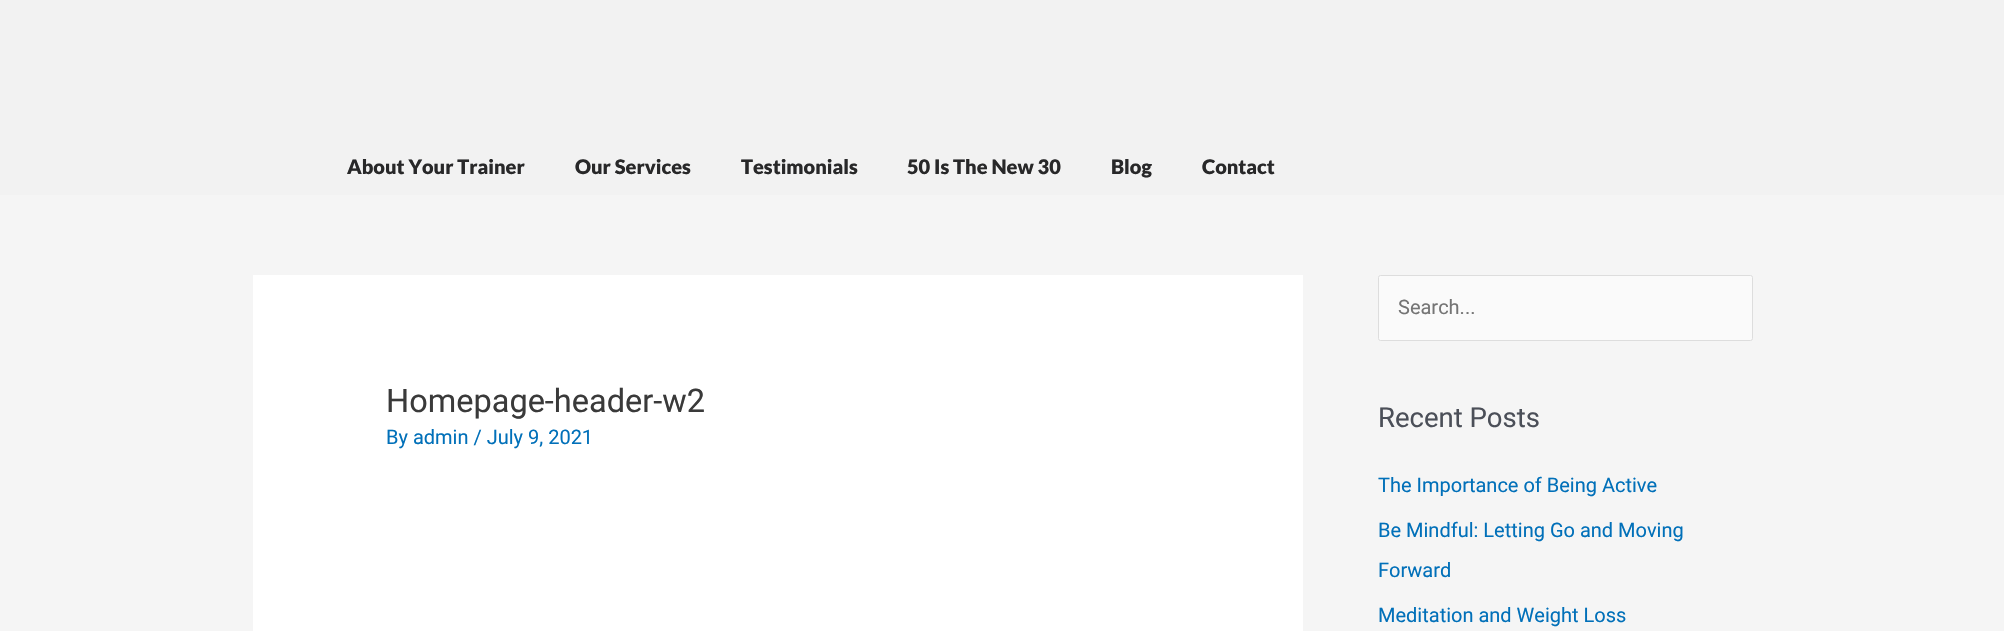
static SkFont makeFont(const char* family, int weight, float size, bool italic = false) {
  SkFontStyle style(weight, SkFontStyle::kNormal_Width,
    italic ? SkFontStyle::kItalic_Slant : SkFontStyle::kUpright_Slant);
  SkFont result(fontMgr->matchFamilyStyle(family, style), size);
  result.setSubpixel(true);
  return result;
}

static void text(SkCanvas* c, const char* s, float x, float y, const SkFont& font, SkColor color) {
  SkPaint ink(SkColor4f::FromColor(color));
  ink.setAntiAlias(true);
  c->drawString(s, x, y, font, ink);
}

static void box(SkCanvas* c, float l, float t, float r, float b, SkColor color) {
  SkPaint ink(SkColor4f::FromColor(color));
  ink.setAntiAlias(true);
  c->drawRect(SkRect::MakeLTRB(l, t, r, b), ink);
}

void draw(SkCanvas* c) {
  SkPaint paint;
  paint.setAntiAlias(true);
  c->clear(0xfff5f5f5);
  box(c, 0, 0, 2004, 195, 0xfff2f2f2);
  SkFont face1 = makeFont("Lato", 900, 20);
  text(c, "About Your Trainer", 347, 174, face1, 0xff282829);
  text(c, "Our Services", 575, 174, face1, 0xff282829);
  text(c, "Testimonials", 741, 174, face1, 0xff282829);
  text(c, "50 Is The New 30", 907, 174, face1, 0xff282829);
  text(c, "Blog", 1111, 174, face1, 0xff282829);
  text(c, "Contact", 1202, 174, face1, 0xff282829);
  box(c, 253, 275, 1303, 631, 0xffffffff);
  SkFont face2 = makeFont("Roboto", 400, 32.5f);
  text(c, "Homepage-header-w2", 386, 412, face2, 0xff3a3a3a);
  SkFont face3 = makeFont("Roboto", 400, 20);
  text(c, "By admin / July 9, 2021", 386, 444, face3, 0xff0170b9);
  paint.setColor(0xfffafafa);
  c->drawRoundRect(SkRect::MakeLTRB(1378.5f, 275.5f, 1752.5f, 340.5f), 2, 2, paint);
  paint.setStyle(SkPaint::kStroke_Style);
  paint.setStrokeWidth(1);
  paint.setColor(0xffdddddd);
  c->drawRoundRect(SkRect::MakeLTRB(1378.5f, 275.5f, 1752.5f, 340.5f), 2, 2, paint);
  text(c, "Search...", 1398, 314, face3, 0xff757575);
  SkFont face4 = makeFont("Roboto", 400, 27.5f);
  text(c, "Recent Posts", 1378, 427, face4, 0xff4b4f58);
  text(c, "The Importance of Being Active", 1378, 492, face3, 0xff0170b9);
  text(c, "Be Mindful: Letting Go and Moving", 1378, 537, face3, 0xff0170b9);
  text(c, "Forward", 1378, 577, face3, 0xff0170b9);
  text(c, "Meditation and Weight Loss", 1378, 622, face3, 0xff0170b9);
}
